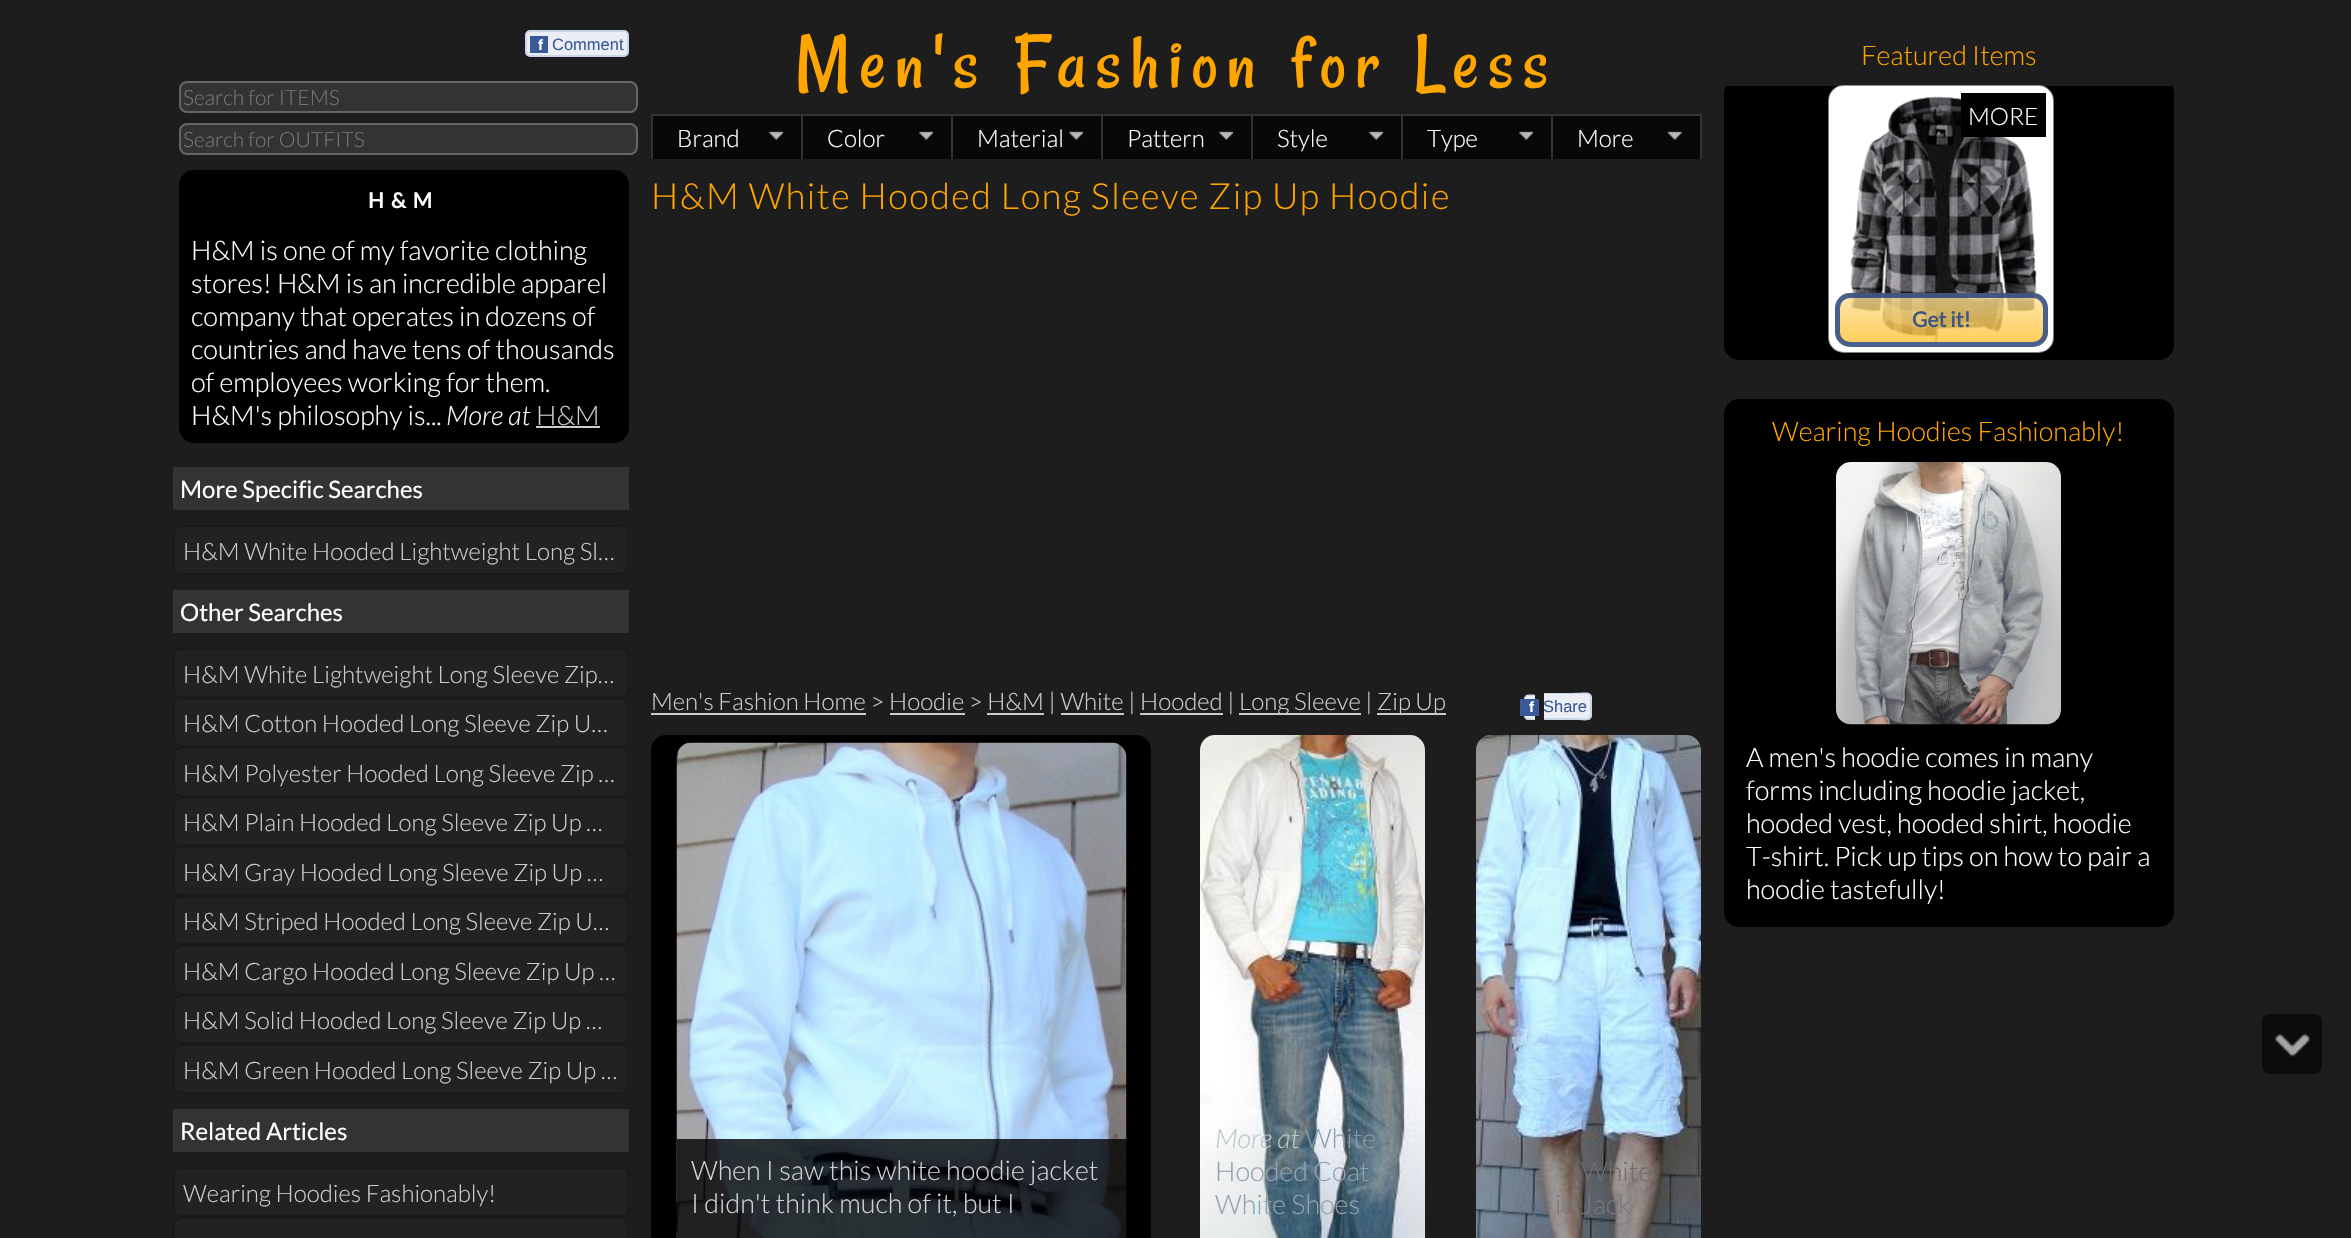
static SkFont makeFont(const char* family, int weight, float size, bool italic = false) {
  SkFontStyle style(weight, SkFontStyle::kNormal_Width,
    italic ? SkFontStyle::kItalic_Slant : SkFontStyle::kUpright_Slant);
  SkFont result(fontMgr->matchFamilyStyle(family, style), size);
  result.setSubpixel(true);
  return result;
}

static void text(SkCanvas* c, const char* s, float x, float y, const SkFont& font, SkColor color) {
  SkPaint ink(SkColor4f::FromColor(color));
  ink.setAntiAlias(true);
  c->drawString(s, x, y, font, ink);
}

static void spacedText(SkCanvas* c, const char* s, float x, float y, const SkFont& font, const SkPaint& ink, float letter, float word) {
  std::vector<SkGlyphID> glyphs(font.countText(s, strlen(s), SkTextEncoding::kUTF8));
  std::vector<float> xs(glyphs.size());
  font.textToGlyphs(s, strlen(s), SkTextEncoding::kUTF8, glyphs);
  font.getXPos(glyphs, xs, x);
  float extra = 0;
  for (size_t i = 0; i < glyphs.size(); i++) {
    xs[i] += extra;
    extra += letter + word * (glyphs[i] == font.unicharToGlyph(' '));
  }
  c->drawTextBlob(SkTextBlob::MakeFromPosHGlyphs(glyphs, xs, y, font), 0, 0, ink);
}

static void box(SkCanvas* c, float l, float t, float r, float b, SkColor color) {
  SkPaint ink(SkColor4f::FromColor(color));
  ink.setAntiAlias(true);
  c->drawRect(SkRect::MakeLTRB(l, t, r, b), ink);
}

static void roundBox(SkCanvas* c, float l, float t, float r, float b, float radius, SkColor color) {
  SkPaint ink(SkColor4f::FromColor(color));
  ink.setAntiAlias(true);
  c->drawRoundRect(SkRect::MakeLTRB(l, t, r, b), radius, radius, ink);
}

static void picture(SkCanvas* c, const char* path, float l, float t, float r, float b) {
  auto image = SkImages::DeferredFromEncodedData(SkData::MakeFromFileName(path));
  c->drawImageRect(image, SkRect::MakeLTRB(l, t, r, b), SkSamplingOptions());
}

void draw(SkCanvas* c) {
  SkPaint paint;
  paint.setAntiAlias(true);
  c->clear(0xff1d1d1d);
  paint.setColor(0xffeceef5);
  c->drawRoundRect(SkRect::MakeLTRB(526, 31, 628, 56), 4, 4, paint);
  paint.setStyle(SkPaint::kStroke_Style);
  paint.setStrokeWidth(2);
  paint.setColor(0xffcad4e7);
  c->drawRoundRect(SkRect::MakeLTRB(526, 31, 628, 56), 4, 4, paint);
  box(c, 530, 36, 548, 53, 0xff3b5998);
  SkFont face1 = makeFont("Liberation Sans", 700, 15);
  text(c, "f", 538, 50, face1, 0xffffffff);
  SkFont face2 = makeFont("Liberation Sans", 400, 16.5f);
  text(c, "Comment", 552, 50, face2, 0xff3b5998);
  paint.setStyle(SkPaint::kFill_Style);
  paint.setColor(0xff333333);
  c->drawRoundRect(SkRect::MakeLTRB(180, 82, 637, 112), 7, 7, paint);
  paint.setStyle(SkPaint::kStroke_Style);
  paint.setColor(0xff666666);
  c->drawRoundRect(SkRect::MakeLTRB(180, 82, 637, 112), 7, 7, paint);
  SkFont face3 = makeFont("Lato", 300, 21);
  text(c, "Search for ITEMS", 183, 105, face3, 0xff757575);
  paint.setStyle(SkPaint::kFill_Style);
  paint.setColor(0xff333333);
  c->drawRoundRect(SkRect::MakeLTRB(180, 124, 637, 154), 7, 7, paint);
  paint.setStyle(SkPaint::kStroke_Style);
  paint.setColor(0xff666666);
  c->drawRoundRect(SkRect::MakeLTRB(180, 124, 637, 154), 7, 7, paint);
  text(c, "Search for OUTFITS", 183, 147, face3, 0xff757575);
  roundBox(c, 179, 170, 629, 443, 15, 0xff000000);
  SkFont face4 = makeFont("Lato", 700, 21);
  paint.setStyle(SkPaint::kFill_Style);
  paint.setColor(0xffffffff);
  spacedText(c, "H&M", 368, 208, face4, paint, 7, 0);
  SkFont face5 = makeFont("Lato", 300, 27);
  text(c, "H&M is one of my favorite clothing", 191, 260, face5, 0xffffffff);
  text(c, "stores! H&M is an incredible apparel", 191, 293, face5, 0xffffffff);
  text(c, "company that operates in dozens of", 191, 326, face5, 0xffffffff);
  text(c, "countries and have tens of thousands", 191, 359, face5, 0xffffffff);
  text(c, "of employees working for them.", 191, 392, face5, 0xffffffff);
  text(c, "H&M's philosophy is...", 191, 425, face5, 0xffffffff);
  SkFont face6 = makeFont("Lato", 300, 27, true);
  text(c, "More at", 446, 425, face6, 0xffffffff);
  text(c, "H&M", 536, 425, face5, 0xffcccccc);
  box(c, 536, 426, 600, 428, 0xffcccccc);
  box(c, 173, 467, 629, 510, 0xff333333);
  SkFont face7 = makeFont("Lato", 400, 24);
  text(c, "More Specific Searches", 180, 498, face7, 0xffffffff);
  paint.setColor(0xff222222);
  c->drawRoundRect(SkRect::MakeLTRB(174, 526, 628, 574), 7, 7, paint);
  paint.setStyle(SkPaint::kStroke_Style);
  paint.setColor(0xff1a1a1a);
  c->drawRoundRect(SkRect::MakeLTRB(174, 526, 628, 574), 7, 7, paint);
  SkFont face8 = makeFont("Lato", 300, 24);
  text(c, "H&M White Hooded Lightweight Long Sl…", 183, 560, face8, 0xffcccccc);
  box(c, 173, 590, 629, 633, 0xff333333);
  text(c, "Other Searches", 180, 621, face7, 0xffffffff);
  paint.setStyle(SkPaint::kFill_Style);
  paint.setColor(0xff222222);
  c->drawRoundRect(SkRect::MakeLTRB(174, 649, 628, 697), 7, 7, paint);
  paint.setStyle(SkPaint::kStroke_Style);
  paint.setColor(0xff1a1a1a);
  c->drawRoundRect(SkRect::MakeLTRB(174, 649, 628, 697), 7, 7, paint);
  text(c, "H&M White Lightweight Long Sleeve Zip…", 183, 683, face8, 0xffcccccc);
  paint.setStyle(SkPaint::kFill_Style);
  paint.setColor(0xff222222);
  c->drawRoundRect(SkRect::MakeLTRB(174, 699, 628, 746), 7, 7, paint);
  paint.setStyle(SkPaint::kStroke_Style);
  paint.setColor(0xff1a1a1a);
  c->drawRoundRect(SkRect::MakeLTRB(174, 699, 628, 746), 7, 7, paint);
  text(c, "H&M Cotton Hooded Long Sleeve Zip U…", 183, 732, face8, 0xffcccccc);
  paint.setStyle(SkPaint::kFill_Style);
  paint.setColor(0xff222222);
  c->drawRoundRect(SkRect::MakeLTRB(174, 748, 628, 796), 7, 7, paint);
  paint.setStyle(SkPaint::kStroke_Style);
  paint.setColor(0xff1a1a1a);
  c->drawRoundRect(SkRect::MakeLTRB(174, 748, 628, 796), 7, 7, paint);
  text(c, "H&M Polyester Hooded Long Sleeve Zip …", 183, 782, face8, 0xffcccccc);
  paint.setStyle(SkPaint::kFill_Style);
  paint.setColor(0xff222222);
  c->drawRoundRect(SkRect::MakeLTRB(174, 798, 628, 845), 7, 7, paint);
  paint.setStyle(SkPaint::kStroke_Style);
  paint.setColor(0xff1a1a1a);
  c->drawRoundRect(SkRect::MakeLTRB(174, 798, 628, 845), 7, 7, paint);
  text(c, "H&M Plain Hooded Long Sleeve Zip Up …", 183, 831, face8, 0xffcccccc);
  paint.setStyle(SkPaint::kFill_Style);
  paint.setColor(0xff222222);
  c->drawRoundRect(SkRect::MakeLTRB(174, 847, 628, 895), 7, 7, paint);
  paint.setStyle(SkPaint::kStroke_Style);
  paint.setColor(0xff1a1a1a);
  c->drawRoundRect(SkRect::MakeLTRB(174, 847, 628, 895), 7, 7, paint);
  text(c, "H&M Gray Hooded Long Sleeve Zip Up …", 183, 881, face8, 0xffcccccc);
  paint.setStyle(SkPaint::kFill_Style);
  paint.setColor(0xff222222);
  c->drawRoundRect(SkRect::MakeLTRB(174, 897, 628, 944), 7, 7, paint);
  paint.setStyle(SkPaint::kStroke_Style);
  paint.setColor(0xff1a1a1a);
  c->drawRoundRect(SkRect::MakeLTRB(174, 897, 628, 944), 7, 7, paint);
  text(c, "H&M Striped Hooded Long Sleeve Zip U…", 183, 930, face8, 0xffcccccc);
  paint.setStyle(SkPaint::kFill_Style);
  paint.setColor(0xff222222);
  c->drawRoundRect(SkRect::MakeLTRB(174, 946, 628, 994), 7, 7, paint);
  paint.setStyle(SkPaint::kStroke_Style);
  paint.setColor(0xff1a1a1a);
  c->drawRoundRect(SkRect::MakeLTRB(174, 946, 628, 994), 7, 7, paint);
  text(c, "H&M Cargo Hooded Long Sleeve Zip Up …", 183, 980, face8, 0xffcccccc);
  paint.setStyle(SkPaint::kFill_Style);
  paint.setColor(0xff222222);
  c->drawRoundRect(SkRect::MakeLTRB(174, 996, 628, 1043), 7, 7, paint);
  paint.setStyle(SkPaint::kStroke_Style);
  paint.setColor(0xff1a1a1a);
  c->drawRoundRect(SkRect::MakeLTRB(174, 996, 628, 1043), 7, 7, paint);
  text(c, "H&M Solid Hooded Long Sleeve Zip Up …", 183, 1029, face8, 0xffcccccc);
  paint.setStyle(SkPaint::kFill_Style);
  paint.setColor(0xff222222);
  c->drawRoundRect(SkRect::MakeLTRB(174, 1045, 628, 1093), 7, 7, paint);
  paint.setStyle(SkPaint::kStroke_Style);
  paint.setColor(0xff1a1a1a);
  c->drawRoundRect(SkRect::MakeLTRB(174, 1045, 628, 1093), 7, 7, paint);
  text(c, "H&M Green Hooded Long Sleeve Zip Up …", 183, 1079, face8, 0xffcccccc);
  box(c, 173, 1109, 629, 1152, 0xff333333);
  text(c, "Related Articles", 180, 1140, face7, 0xffffffff);
  paint.setStyle(SkPaint::kFill_Style);
  paint.setColor(0xff222222);
  c->drawRoundRect(SkRect::MakeLTRB(174, 1168, 628, 1216), 7, 7, paint);
  paint.setStyle(SkPaint::kStroke_Style);
  paint.setColor(0xff1a1a1a);
  c->drawRoundRect(SkRect::MakeLTRB(174, 1168, 628, 1216), 7, 7, paint);
  text(c, "Wearing Hoodies Fashionably!", 183, 1202, face8, 0xffcccccc);
  paint.setStyle(SkPaint::kFill_Style);
  paint.setColor(0xff222222);
  c->drawRoundRect(SkRect::MakeLTRB(174, 1218, 628, 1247), 7, 7, paint);
  paint.setStyle(SkPaint::kStroke_Style);
  paint.setColor(0xff1a1a1a);
  c->drawRoundRect(SkRect::MakeLTRB(174, 1218, 628, 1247), 7, 7, paint);
  SkFont face9 = makeFont("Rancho", 400, 81);
  paint.setStyle(SkPaint::kFill_Style);
  paint.setColor(0xffffa500);
  spacedText(c, "Men's Fashion for Less", 795, 87, face9, paint, 9, 0);
  box(c, 653, 116, 801, 159, 0xff080808);
  box(c, 651, 114, 1101, 116, 0xff333333);
  box(c, 651, 114, 653, 159, 0xff333333);
  text(c, "Brand", 677, 147, face8, 0xffffffff);
  picture(c, "img_01.png", 769, 131, 783, 140);
  picture(c, "img_02.png", 769, 131, 783, 140);
  box(c, 803, 116, 951, 159, 0xff080808);
  box(c, 801, 114, 803, 159, 0xff333333);
  text(c, "Color", 827, 147, face8, 0xffffffff);
  picture(c, "img_01.png", 919, 131, 933, 140);
  picture(c, "img_02.png", 919, 131, 933, 140);
  box(c, 953, 116, 1101, 159, 0xff080808);
  box(c, 951, 114, 953, 159, 0xff333333);
  text(c, "Material", 977, 147, face8, 0xffffffff);
  picture(c, "img_03.png", 1069, 131, 1083, 140);
  picture(c, "img_04.png", 1069, 131, 1083, 140);
  box(c, 1103, 116, 1251, 159, 0xff080808);
  box(c, 1101, 114, 1701, 116, 0xff333333);
  box(c, 1101, 114, 1103, 159, 0xff333333);
  text(c, "Pattern", 1127, 147, face8, 0xffffffff);
  picture(c, "img_03.png", 1219, 131, 1233, 140);
  picture(c, "img_04.png", 1219, 131, 1233, 140);
  box(c, 1253, 116, 1401, 159, 0xff080808);
  box(c, 1251, 114, 1253, 159, 0xff333333);
  text(c, "Style", 1277, 147, face8, 0xffffffff);
  picture(c, "img_01.png", 1369, 131, 1383, 140);
  picture(c, "img_02.png", 1369, 131, 1383, 140);
  box(c, 1403, 116, 1551, 159, 0xff080808);
  box(c, 1401, 114, 1403, 159, 0xff333333);
  text(c, "Type", 1427, 147, face8, 0xffffffff);
  picture(c, "img_05.png", 1519, 131, 1533, 140);
  picture(c, "img_06.png", 1519, 131, 1533, 140);
  box(c, 1553, 116, 1700, 159, 0xff080808);
  box(c, 1700, 114, 1702, 159, 0xff333333);
  box(c, 1551, 114, 1553, 159, 0xff333333);
  text(c, "More", 1577, 147, face8, 0xffffffff);
  picture(c, "img_07.png", 1667, 131, 1682, 140);
  picture(c, "img_08.png", 1667, 131, 1682, 140);
  SkFont face10 = makeFont("Lato", 300, 36);
  spacedText(c, "H&M White Hooded Long Sleeve Zip Up Hoodie", 651, 209, face10, paint, 1.5f, 0);
  box(c, 651, 713, 866, 715, 0xffcccccc);
  text(c, "Men's Fashion Home > Hoodie > H&M | White | Hooded |", 651, 710, face8, 0xffcccccc);
  box(c, 890, 713, 965, 715, 0xffcccccc);
  box(c, 987, 713, 1044, 715, 0xffcccccc);
  box(c, 1061, 713, 1124, 715, 0xffcccccc);
  box(c, 1140, 713, 1223, 715, 0xffcccccc);
  box(c, 1239, 713, 1361, 715, 0xffcccccc);
  text(c, "Long Sleeve |", 1239, 710, face8, 0xffcccccc);
  box(c, 1377, 713, 1446, 715, 0xffcccccc);
  text(c, "Zip Up", 1377, 710, face8, 0xffcccccc);
  paint.setColor(0xffeceef5);
  c->drawPath(SkPathBuilder().moveTo(1529, 695).lineTo(1535, 695).lineTo(1535, 720).lineTo(1529, 720).cubicTo(1526, 720, 1524, 718, 1524, 715).lineTo(1524, 700).cubicTo(1524, 697, 1526, 695, 1529, 695).close().detach(), paint);
  paint.setColor(0xffcad4e7);
  c->drawPath(SkPathBuilder(SkPathFillType::kEvenOdd).moveTo(1528.5f, 694.5f).lineTo(1534.5f, 694.5f).lineTo(1534.5f, 720).lineTo(1528.5f, 720).cubicTo(1526, 720, 1524, 718, 1524, 715.5f).lineTo(1524, 699).cubicTo(1524, 696.5f, 1526, 694.5f, 1528.5f, 694.5f).close().moveTo(1528.5f, 696).lineTo(1534.5f, 696).lineTo(1534.5f, 718.5f).cubicTo(1525.5f, 718.5f, 1525.5f, 719.5f, 1525.5f, 710).lineTo(1525.5f, 702).cubicTo(1525.5f, 699.5f, 1525, 696, 1528.5f, 696).close().detach(), paint);
  box(c, 1520, 699, 1539, 716, 0xff3b5998);
  text(c, "f", 1529, 712, face1, 0xffffffff);
  paint.setColor(0xffeceef5);
  c->drawPath(SkPathBuilder().moveTo(1544, 693).lineTo(1587, 693).cubicTo(1590, 693, 1592, 695, 1592, 698).lineTo(1592, 715).cubicTo(1592, 718, 1590, 720, 1587, 720).lineTo(1544, 720).close().detach(), paint);
  paint.setColor(0xffcad4e7);
  c->drawPath(SkPathBuilder(SkPathFillType::kEvenOdd).moveTo(1544, 693).lineTo(1572, 693).cubicTo(1591, 693, 1592, 689, 1592, 706).cubicTo(1592, 724, 1591, 720, 1572, 720).lineTo(1544, 720).close().moveTo(1544, 694).lineTo(1572, 694).cubicTo(1591, 694, 1590, 691, 1590, 706).cubicTo(1590, 722, 1591, 718, 1572, 718).lineTo(1544, 718).close().detach(), paint);
  text(c, "Share", 1543, 712, face2, 0xff3b5998);
  roundBox(c, 651, 735, 1151, 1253, 15, 0xff000000);
  picture(c, "img_09.png", 676, 742, 1127, 1238);
  box(c, 677, 1139, 1127, 1238, 0xcc000000);
  text(c, "When I saw this white hoodie jacket", 691, 1180, face5, 0xffd2d2d4);
  text(c, "I didn't think much of it, but I", 691, 1213, face5, 0xffd2d2d4);
  picture(c, "img_10.png", 1200, 735, 1425, 1238);
  text(c, "More at", 1215, 1148, face6, 0xffbec7c9);
  text(c, "White", 1305, 1148, face5, 0xff8c9da9);
  text(c, "Hooded Coat", 1215, 1181, face5, 0xff92a3ad);
  text(c, "White Shoes", 1215, 1214, face5, 0xff92a3ad);
  picture(c, "img_11.png", 1476, 735, 1701, 1238);
  text(c, "White", 1581, 1181, face5, 0xff716d6d);
  text(c, "ie Jack", 1555, 1214, face5, 0xff77777c);
  text(c, "Featured Items", 1861, 65, face5, 0xffffa500);
  c->save();
  c->clipRect(SkRect::MakeLTRB(1724, 86, 2174, 392));
  roundBox(c, 1724, 78, 2174, 360, 15, 0xff000000);
  c->restore();
  picture(c, "img_12.png", 1828, 85, 2054, 353);
  box(c, 1961, 93, 2046, 137, 0xff000000);
  text(c, "MORE", 1968, 125, face8, 0xffffffff);
  paint.setStyle(SkPaint::kStroke_Style);
  paint.setStrokeWidth(5);
  paint.setColor(0xcc1c3e8c);
  c->drawRoundRect(SkRect::MakeLTRB(1837.5f, 295.5f, 2045.5f, 344.5f), 12.5f, 12.5f, paint);
  text(c, "Get it!", 1912, 327, face4, 0xff425683);
  roundBox(c, 1724, 399, 2174, 927, 15, 0xff000000);
  text(c, "Wearing Hoodies Fashionably!", 1772, 441, face5, 0xffffa500);
  picture(c, "img_13.png", 1836, 462, 2061, 725);
  text(c, "A men's hoodie comes in many", 1746, 767, face5, 0xffffffff);
  text(c, "forms including hoodie jacket,", 1746, 800, face5, 0xffffffff);
  text(c, "hooded vest, hooded shirt, hoodie", 1746, 833, face5, 0xffffffff);
  text(c, "T-shirt. Pick up tips on how to pair a", 1746, 866, face5, 0xffffffff);
  text(c, "hoodie tastefully!", 1746, 899, face5, 0xffffffff);
  picture(c, "img_14.png", 2262, 1014, 2322, 1074);
}
